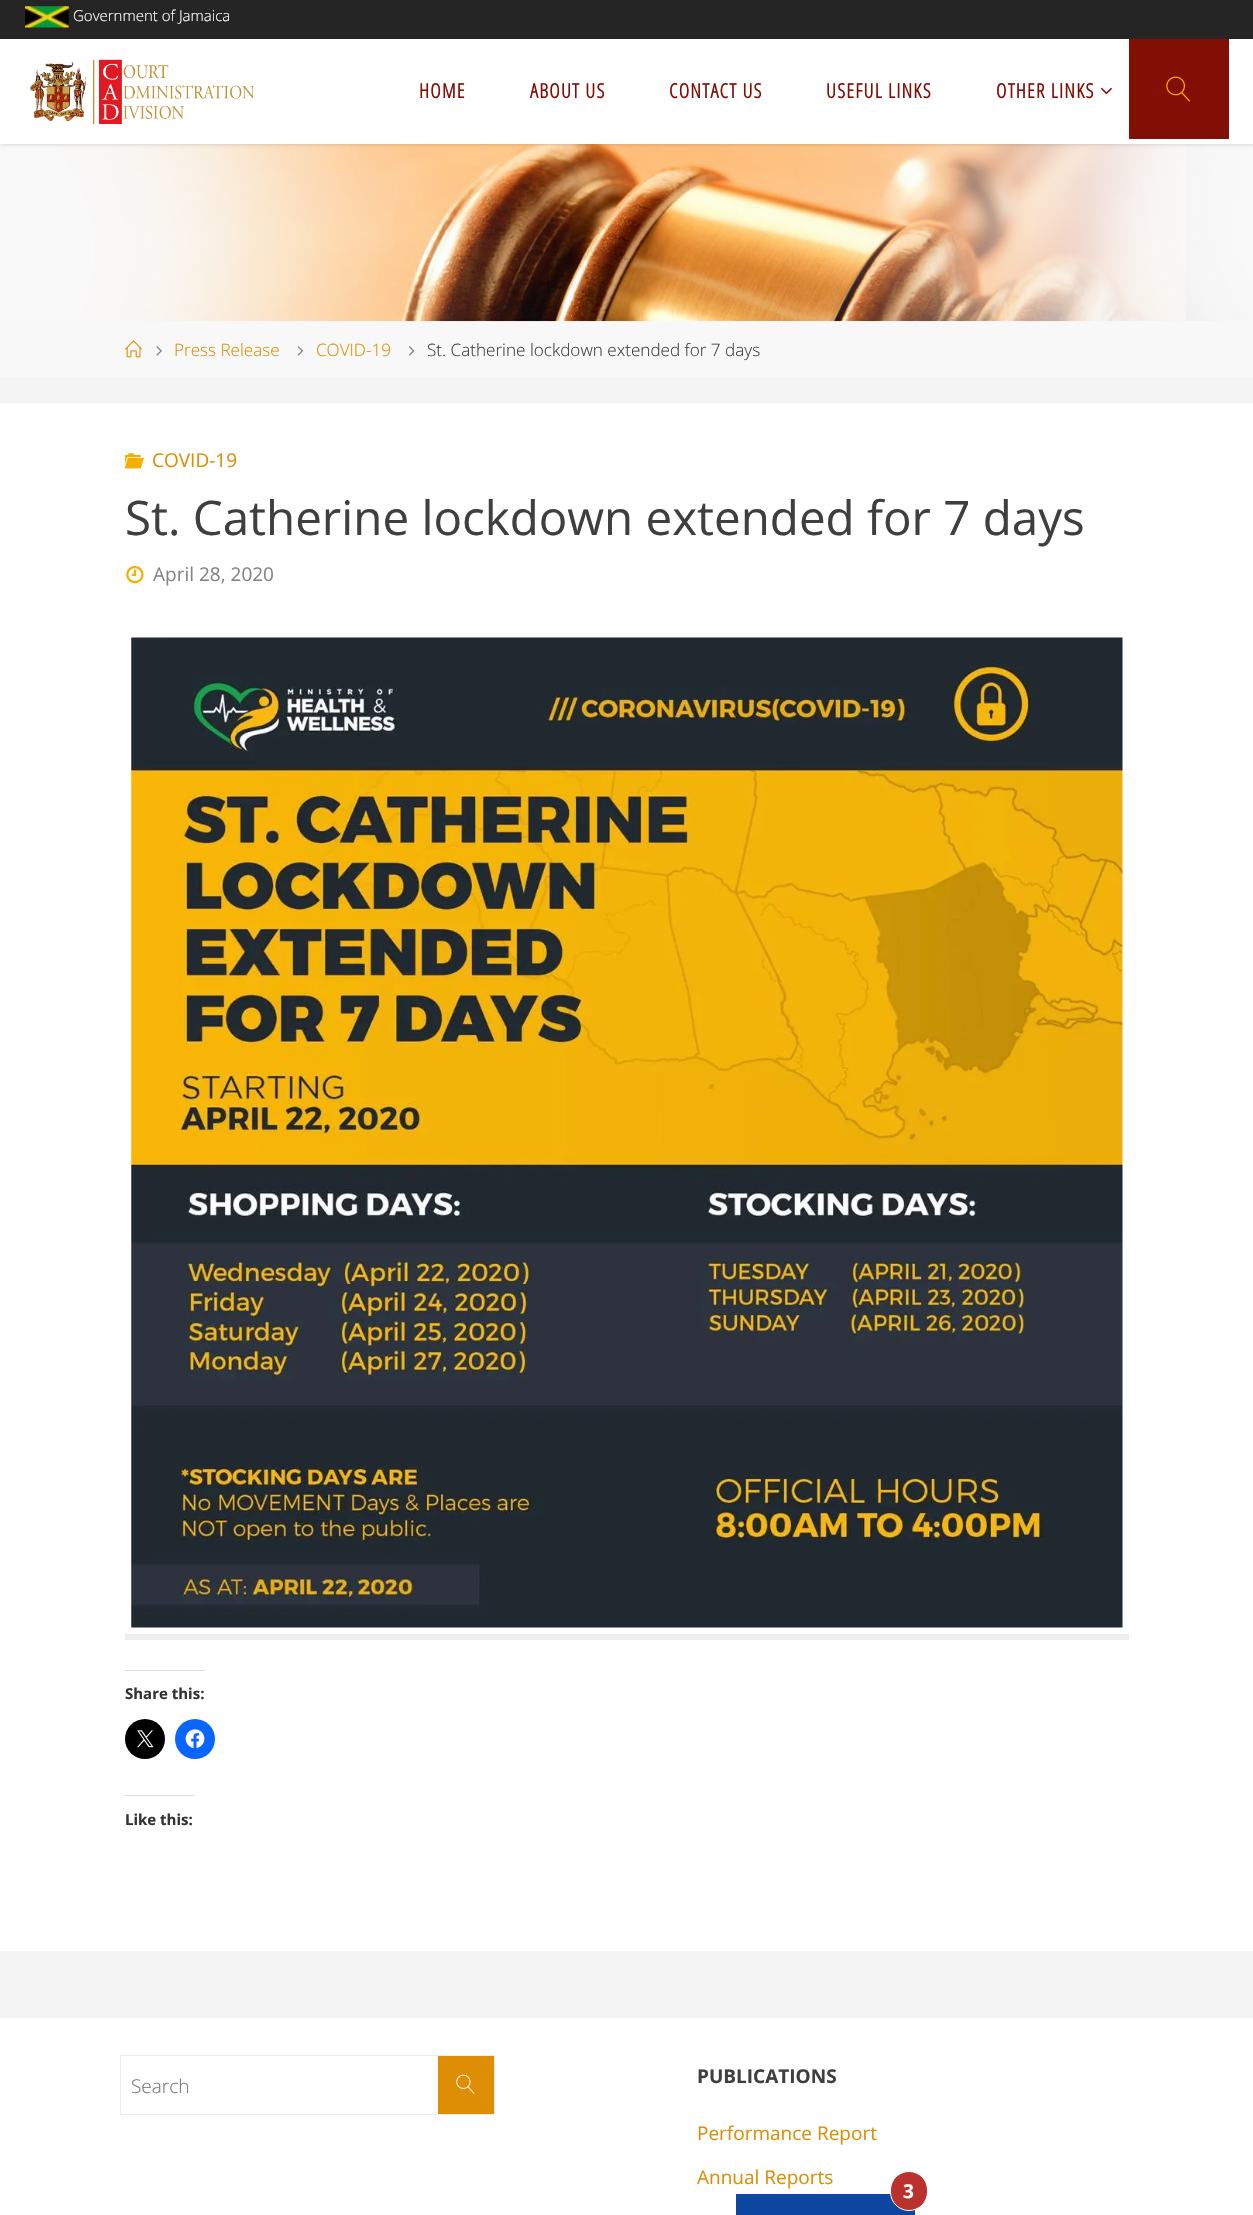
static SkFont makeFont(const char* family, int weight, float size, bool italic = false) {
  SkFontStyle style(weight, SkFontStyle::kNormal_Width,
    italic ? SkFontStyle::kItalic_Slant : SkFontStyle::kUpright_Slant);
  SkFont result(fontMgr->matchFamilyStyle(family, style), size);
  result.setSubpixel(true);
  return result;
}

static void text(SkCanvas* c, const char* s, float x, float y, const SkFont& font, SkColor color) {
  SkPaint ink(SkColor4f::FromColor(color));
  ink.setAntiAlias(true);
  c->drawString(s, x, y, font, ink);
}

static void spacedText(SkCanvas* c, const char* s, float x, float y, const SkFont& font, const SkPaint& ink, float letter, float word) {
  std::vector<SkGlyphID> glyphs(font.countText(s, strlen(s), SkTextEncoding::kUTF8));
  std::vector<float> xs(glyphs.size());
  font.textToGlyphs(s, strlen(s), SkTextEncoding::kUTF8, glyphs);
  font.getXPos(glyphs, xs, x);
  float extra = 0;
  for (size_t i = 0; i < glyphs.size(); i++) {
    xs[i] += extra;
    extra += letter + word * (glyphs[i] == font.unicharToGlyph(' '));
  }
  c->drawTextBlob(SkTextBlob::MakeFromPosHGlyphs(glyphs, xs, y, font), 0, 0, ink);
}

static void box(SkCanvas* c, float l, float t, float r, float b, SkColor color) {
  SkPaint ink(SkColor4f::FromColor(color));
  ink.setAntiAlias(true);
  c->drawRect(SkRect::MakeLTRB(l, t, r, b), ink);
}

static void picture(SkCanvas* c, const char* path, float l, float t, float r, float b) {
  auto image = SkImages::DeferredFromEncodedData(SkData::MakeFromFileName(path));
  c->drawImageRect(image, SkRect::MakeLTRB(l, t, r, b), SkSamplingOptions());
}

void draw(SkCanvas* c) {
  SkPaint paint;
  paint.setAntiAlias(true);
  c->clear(0xfff3f3f3);
  box(c, 0, 321, 1253, 378, 0xfff8f8f8);
  picture(c, "img_05.png", 0, 144, 1253, 322);
  paint.setColor(0x33000000);
  paint.setMaskFilter(SkMaskFilter::MakeBlur(kNormal_SkBlurStyle, 2));
  c->drawRect(SkRect::MakeLTRB(0, 0, 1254, 144), paint);
  paint.setMaskFilter(nullptr);
  box(c, 0, 39, 1253, 144, 0xffffffff);
  box(c, 0, 0, 1253, 39, 0xff252525);
  picture(c, "img_01.png", 25, 6, 69, 28);
  SkFont face1 = makeFont("Open Sans", 300, 15);
  text(c, "Government of Jamaica", 73, 21, face1, 0xffffffff);
  picture(c, "img_02.png", 29, 59, 255, 124);
  SkFont face2 = makeFont("Open Sans Condensed", 700, 20);
  paint.setColor(0xff820f06);
  spacedText(c, "HOME", 419, 98, face2, paint, 1.25f, 0);
  spacedText(c, "ABOUT US", 530, 98, face2, paint, 1.25f, 0);
  spacedText(c, "CONTACT US", 669, 98, face2, paint, 1.25f, 0);
  spacedText(c, "USEFUL LINKS", 826, 98, face2, paint, 1.25f, 0);
  spacedText(c, "OTHER LINKS", 996, 98, face2, paint, 1.25f, 0);
  picture(c, "img_03.png", 1100, 87, 1112, 95);
  box(c, 1129, 39, 1229, 139, 0xff820f06);
  picture(c, "img_04.png", 1166, 76, 1190, 102);
  box(c, 0, 2018, 1253, 2215, 0xffffffff);
  box(c, 736, 2194, 915, 2215, 0xff0d47a1);
  paint.setColor(0xffbb312d);
  c->drawRoundRect(SkRect::MakeLTRB(890.5f, 2171.5f, 927.5f, 2210.5f), 18.5f, 18.5f, paint);
  paint.setStyle(SkPaint::kStroke_Style);
  paint.setStrokeWidth(1);
  paint.setColor(0xffffffff);
  c->drawRoundRect(SkRect::MakeLTRB(890.5f, 2171.5f, 927.5f, 2210.5f), 18.5f, 18.5f, paint);
  SkFont face3 = makeFont("Open Sans", 700, 19);
  text(c, "3", 903, 2198, face3, 0xffffffff);
  picture(c, "img_06.png", 125, 340, 143, 358);
  picture(c, "img_07.png", 156, 346, 162, 356);
  SkFont face4 = makeFont("Open Sans", 300, 17.1f);
  text(c, "Press Release", 174, 356, face4, 0xffdd8e04);
  picture(c, "img_08.png", 297, 346, 304, 356);
  text(c, "COVID-19", 316, 356, face4, 0xffdd8e04);
  picture(c, "img_09.png", 409, 346, 415, 356);
  text(c, "St. Catherine lockdown extended for 7 days", 427, 356, face4, 0xff403f3f);
  box(c, 0, 403, 1253, 1951, 0xffffffff);
  picture(c, "img_10.png", 125, 453, 144, 469);
  SkFont face5 = makeFont("Open Sans", 400, 19);
  text(c, "COVID-19", 152, 467, face5, 0xffdd8e04);
  SkFont face6 = makeFont("Open Sans", 400, 47.5f);
  text(c, "St. Catherine lockdown extended for 7 days", 125, 535, face6, 0xff403f3f);
  picture(c, "img_11.png", 126, 566, 144, 584);
  text(c, "April 28, 2020", 153, 581, face5, 0xff858484);
  picture(c, "img_12.png", 131, 637, 1123, 1628);
  box(c, 125, 1634, 1129, 1640, 0xffeeeeee);
  box(c, 125, 1670, 205, 1671, 0xffdcdcde);
  SkFont face7 = makeFont("Open Sans", 700, 15);
  text(c, "Share this:", 125, 1699, face7, 0xff333333);
  paint.setStyle(SkPaint::kFill_Style);
  paint.setColor(0xff000000);
  c->drawCircle(145, 1739, 20, paint);
  picture(c, "img_13.png", 137, 1730, 154, 1748);
  paint.setColor(0xff0866ff);
  c->drawCircle(195, 1739, 20, paint);
  picture(c, "img_14.png", 185, 1729, 205, 1748);
  box(c, 125, 1795, 194, 1796, 0xffdcdcde);
  text(c, "Like this:", 125, 1825, face7, 0xff333333);
  paint.setStyle(SkPaint::kStroke_Style);
  paint.setColor(0xffebebeb);
  c->drawRect(SkRect::MakeLTRB(120.5f, 2055.5f, 494.5f, 2114.5f), paint);
  box(c, 438, 2056, 494, 2114, 0xffdd8e04);
  SkFont face8 = makeFont("Open Sans", 300, 19);
  text(c, "Search", 131, 2093, face8, 0xff757575);
  picture(c, "img_15.png", 456, 2074, 475, 2094);
  text(c, "PUBLICATIONS", 697, 2083, face3, 0xff403f3f);
  text(c, "Performance Report", 697, 2140, face5, 0xffdd8e04);
  text(c, "Annual Reports", 697, 2184, face5, 0xffdd8e04);
}
